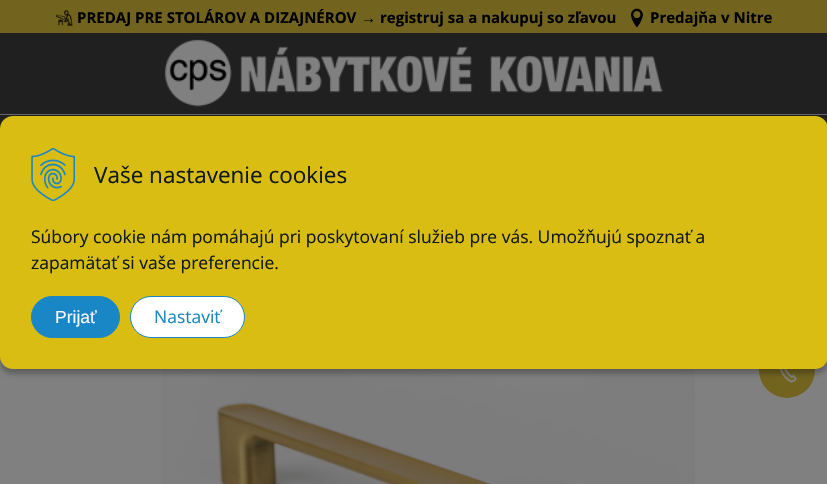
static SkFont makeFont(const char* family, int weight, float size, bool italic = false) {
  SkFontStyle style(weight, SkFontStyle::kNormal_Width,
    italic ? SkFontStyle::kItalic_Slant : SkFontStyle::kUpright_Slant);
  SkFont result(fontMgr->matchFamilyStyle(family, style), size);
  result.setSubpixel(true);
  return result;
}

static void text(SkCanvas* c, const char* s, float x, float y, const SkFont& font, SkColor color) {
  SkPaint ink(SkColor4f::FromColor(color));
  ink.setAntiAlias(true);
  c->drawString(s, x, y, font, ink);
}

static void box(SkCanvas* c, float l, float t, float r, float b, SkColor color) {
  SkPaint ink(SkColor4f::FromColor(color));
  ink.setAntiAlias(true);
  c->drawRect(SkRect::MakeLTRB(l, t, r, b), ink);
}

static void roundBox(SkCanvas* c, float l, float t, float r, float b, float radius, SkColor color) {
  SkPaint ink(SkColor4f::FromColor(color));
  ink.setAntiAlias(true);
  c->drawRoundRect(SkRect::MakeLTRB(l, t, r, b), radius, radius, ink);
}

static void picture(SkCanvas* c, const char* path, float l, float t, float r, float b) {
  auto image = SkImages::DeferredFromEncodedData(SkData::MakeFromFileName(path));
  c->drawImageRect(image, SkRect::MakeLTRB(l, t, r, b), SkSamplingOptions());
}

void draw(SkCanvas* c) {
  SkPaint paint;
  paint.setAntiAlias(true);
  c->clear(0xff808080);
  box(c, 0, 0, 827, 33, 0xff72631f);
  picture(c, "img_01.png", 55, 10, 73, 26);
  SkFont face1 = makeFont("Open Sans", 700, 15);
  text(c, "PREDAJ PRE STOLÁROV A DIZAJNÉROV", 77, 23, face1, 0xff000000);
  SkFont face2 = makeFont("Liberation Sans", 700, 15);
  text(c, "→", 361, 23, face2, 0xff000000);
  text(c, "registruj sa a nakupuj so zľavou", 380, 23, face1, 0xff000000);
  picture(c, "img_02.png", 631, 8, 643, 28);
  text(c, "Predajňa v Nitre", 650, 23, face1, 0xff000000);
  box(c, 0, 33, 827, 129, 0xff212021);
  box(c, 0, 114, 827, 115, 0xff666666);
  picture(c, "img_03.png", 164, 39, 663, 107);
  picture(c, "img_05.png", 162, 369, 695, 484);
  roundBox(c, 759, 341, 815, 398, 28, 0xff72631f);
  picture(c, "img_06.png", 779, 369, 797, 383);
  paint.setColor(0x40000000);
  paint.setMaskFilter(SkMaskFilter::MakeBlur(kNormal_SkBlurStyle, 2.5f));
  c->drawRoundRect(SkRect::MakeLTRB(0, 121, 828, 374), 13, 13, paint);
  paint.setMaskFilter(nullptr);
  roundBox(c, 0, 116, 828, 369, 13, 0xffd9bd12);
  picture(c, "img_04.png", 31, 148, 75, 201);
  SkFont face3 = makeFont("Open Sans", 400, 22.5f);
  text(c, "Vaše nastavenie cookies", 94, 183, face3, 0xff0f181c);
  SkFont face4 = makeFont("Open Sans", 400, 17.5f);
  text(c, "Súbory cookie nám pomáhajú pri poskytovaní služieb pre vás. Umožňujú spoznať a", 31, 243, face4, 0xff0f181c);
  text(c, "zapamätať si vaše preferencie.", 31, 269, face4, 0xff0f181c);
  paint.setColor(0xff1987c6);
  c->drawRoundRect(SkRect::MakeLTRB(31.5f, 296.5f, 119.5f, 337.5f), 20.5f, 20.5f, paint);
  paint.setStyle(SkPaint::kStroke_Style);
  paint.setStrokeWidth(1);
  c->drawRoundRect(SkRect::MakeLTRB(31.5f, 296.5f, 119.5f, 337.5f), 20.5f, 20.5f, paint);
  SkFont face5 = makeFont("Liberation Sans", 400, 17.5f);
  text(c, "Prijať", 55, 323, face5, 0xfff9f6f6);
  paint.setStyle(SkPaint::kFill_Style);
  paint.setColor(0xffffffff);
  c->drawRoundRect(SkRect::MakeLTRB(130.5f, 296.5f, 244.5f, 337.5f), 20.5f, 20.5f, paint);
  paint.setStyle(SkPaint::kStroke_Style);
  paint.setColor(0xff1987c6);
  c->drawRoundRect(SkRect::MakeLTRB(130.5f, 296.5f, 244.5f, 337.5f), 20.5f, 20.5f, paint);
  text(c, "Nastaviť", 154, 323, face4, 0xff1987c6);
}
